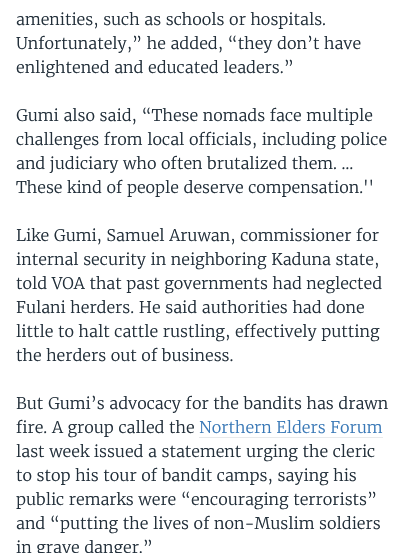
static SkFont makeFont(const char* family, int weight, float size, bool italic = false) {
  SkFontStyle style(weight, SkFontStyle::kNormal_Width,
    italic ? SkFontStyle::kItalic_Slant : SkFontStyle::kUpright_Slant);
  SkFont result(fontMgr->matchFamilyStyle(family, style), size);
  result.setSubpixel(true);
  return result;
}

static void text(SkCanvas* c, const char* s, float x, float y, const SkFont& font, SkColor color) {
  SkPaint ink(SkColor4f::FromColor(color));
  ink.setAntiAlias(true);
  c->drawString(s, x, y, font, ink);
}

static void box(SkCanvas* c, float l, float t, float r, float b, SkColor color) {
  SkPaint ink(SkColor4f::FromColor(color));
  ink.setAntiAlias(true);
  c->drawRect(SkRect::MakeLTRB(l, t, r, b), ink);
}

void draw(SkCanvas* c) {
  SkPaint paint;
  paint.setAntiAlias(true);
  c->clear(0xffffffff);
  SkFont face1 = makeFont("Merriweather", 300, 16);
  text(c, "amenities, such as schools or hospitals.", 16, 25, face1, 0xff222f3a);
  text(c, "Unfortunately,” he added, “they don’t have", 16, 49, face1, 0xff222f3a);
  text(c, "enlightened and educated leaders.”", 16, 73, face1, 0xff222f3a);
  text(c, "Gumi also said, “These nomads face multiple", 16, 121, face1, 0xff222f3a);
  text(c, "challenges from local officials, including police", 16, 145, face1, 0xff222f3a);
  text(c, "and judiciary who often brutalized them. …", 16, 169, face1, 0xff222f3a);
  text(c, "These kind of people deserve compensation.''", 16, 193, face1, 0xff222f3a);
  text(c, "Like Gumi, Samuel Aruwan, commissioner for", 16, 241, face1, 0xff222f3a);
  text(c, "internal security in neighboring Kaduna state,", 16, 265, face1, 0xff222f3a);
  text(c, "told VOA that past governments had neglected", 16, 289, face1, 0xff222f3a);
  text(c, "Fulani herders. He said authorities had done", 16, 313, face1, 0xff222f3a);
  text(c, "little to halt cattle rustling, effectively putting", 16, 337, face1, 0xff222f3a);
  text(c, "the herders out of business.", 16, 361, face1, 0xff222f3a);
  text(c, "But Gumi’s advocacy for the bandits has drawn", 16, 409, face1, 0xff222f3a);
  text(c, "fire. A group called the", 16, 433, face1, 0xff222f3a);
  text(c, "Northern Elders Forum", 199, 433, face1, 0xff3a79b7);
  box(c, 199, 437, 383, 438, 0xffe8eaec);
  text(c, "last week issued a statement urging the cleric", 16, 457, face1, 0xff222f3a);
  text(c, "to stop his tour of bandit camps, saying his", 16, 481, face1, 0xff222f3a);
  text(c, "public remarks were “encouraging terrorists”", 16, 505, face1, 0xff222f3a);
  text(c, "and “putting the lives of non-Muslim soldiers", 16, 529, face1, 0xff222f3a);
  text(c, "in grave danger.”", 16, 553, face1, 0xff222f3a);
}
